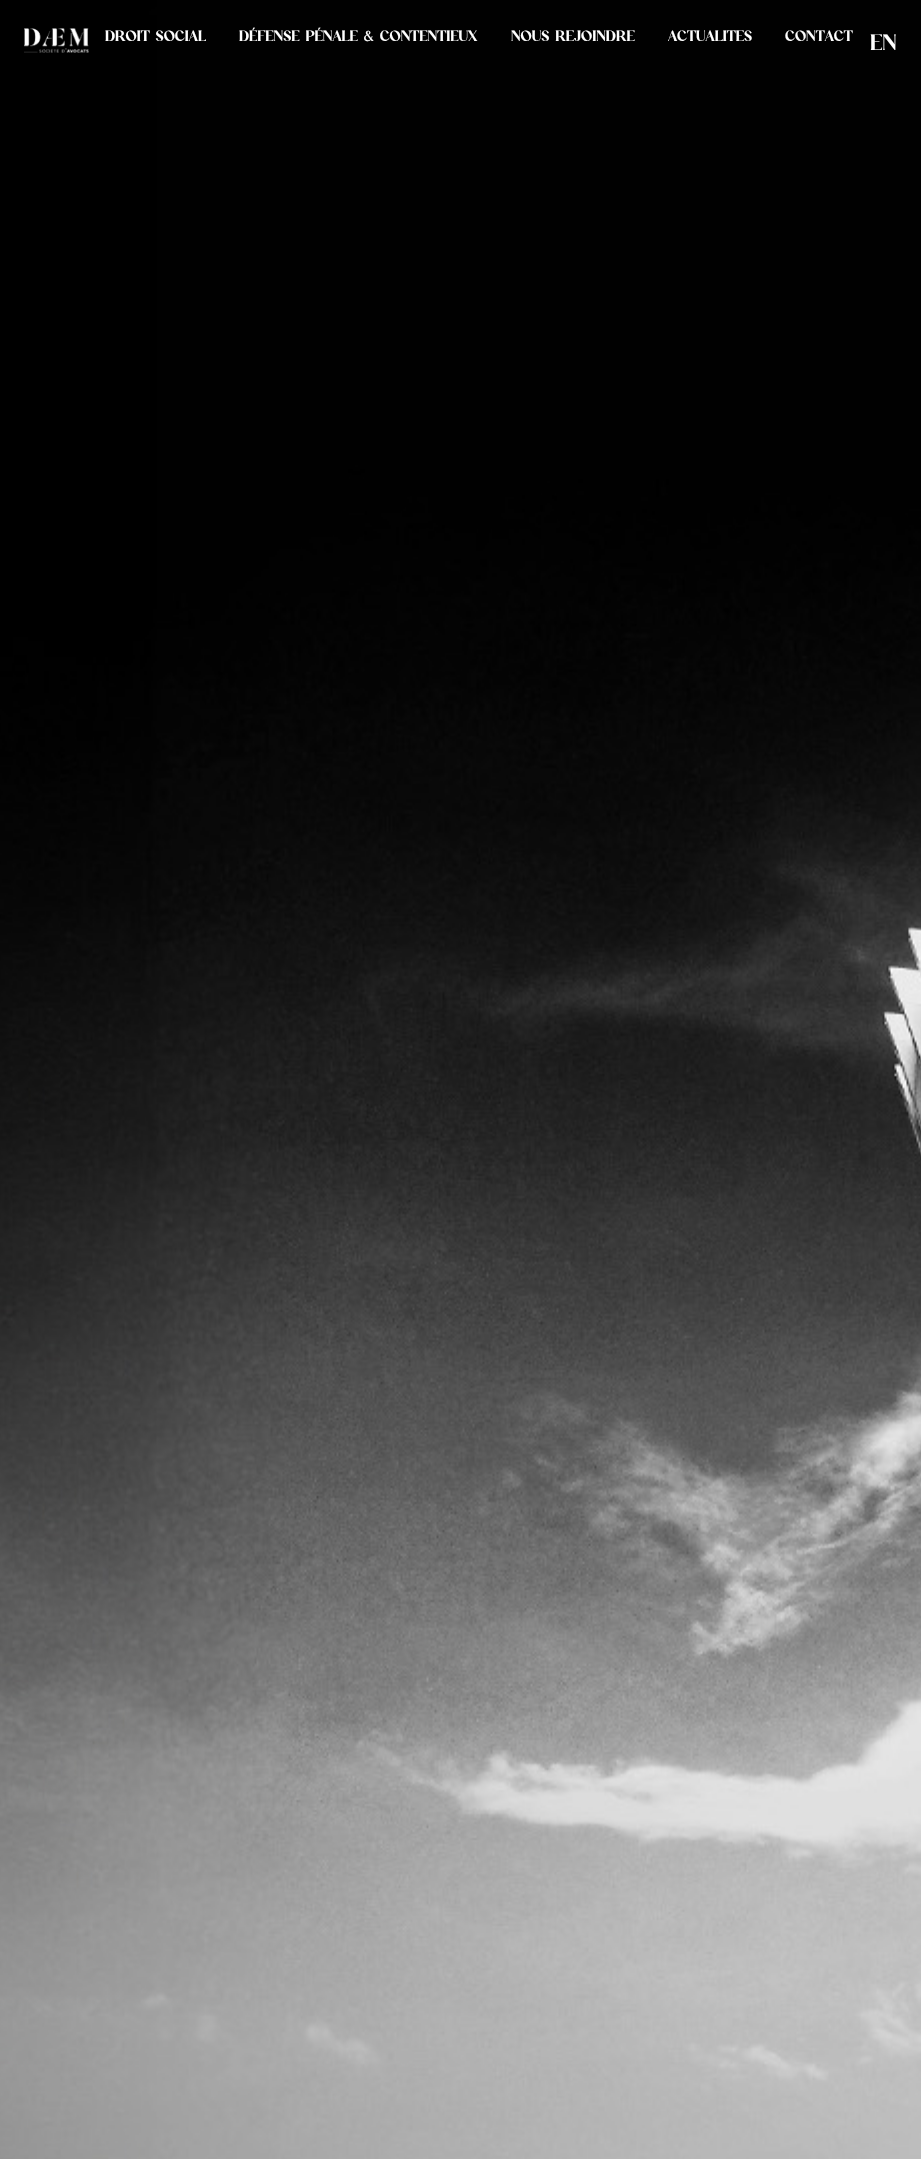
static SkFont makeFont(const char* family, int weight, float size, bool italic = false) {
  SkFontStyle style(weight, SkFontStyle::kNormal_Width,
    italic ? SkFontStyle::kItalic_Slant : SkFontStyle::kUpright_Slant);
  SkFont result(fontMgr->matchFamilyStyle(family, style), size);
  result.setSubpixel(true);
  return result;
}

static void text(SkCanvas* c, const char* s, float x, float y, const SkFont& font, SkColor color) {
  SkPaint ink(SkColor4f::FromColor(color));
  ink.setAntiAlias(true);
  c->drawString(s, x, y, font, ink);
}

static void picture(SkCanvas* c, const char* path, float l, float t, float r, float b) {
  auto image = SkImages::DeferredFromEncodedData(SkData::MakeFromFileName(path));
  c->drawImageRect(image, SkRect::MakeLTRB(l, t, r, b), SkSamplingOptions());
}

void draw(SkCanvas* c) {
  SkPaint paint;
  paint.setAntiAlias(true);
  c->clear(0xffffffff);
  picture(c, "img_01.png", 0, 0, 921, 2159);
  picture(c, "img_02.png", 24, 28, 89, 53);
  SkFont face1 = makeFont("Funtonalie", 400, 16.75f);
  text(c, "DROIT SOCIAL", 105, 41, face1, 0xffffffff);
  text(c, "DÉFENSE PÉNALE & CONTENTIEUX", 239, 41, face1, 0xffffffff);
  text(c, "NOUS REJOINDRE", 511, 41, face1, 0xffffffff);
  text(c, "ACTUALITES", 668, 41, face1, 0xffffffff);
  text(c, "CONTACT", 785, 41, face1, 0xffffffff);
  SkFont face2 = makeFont("Funtonalie", 400, 25);
  text(c, "EN", 870, 50, face2, 0xffffffff);
}
